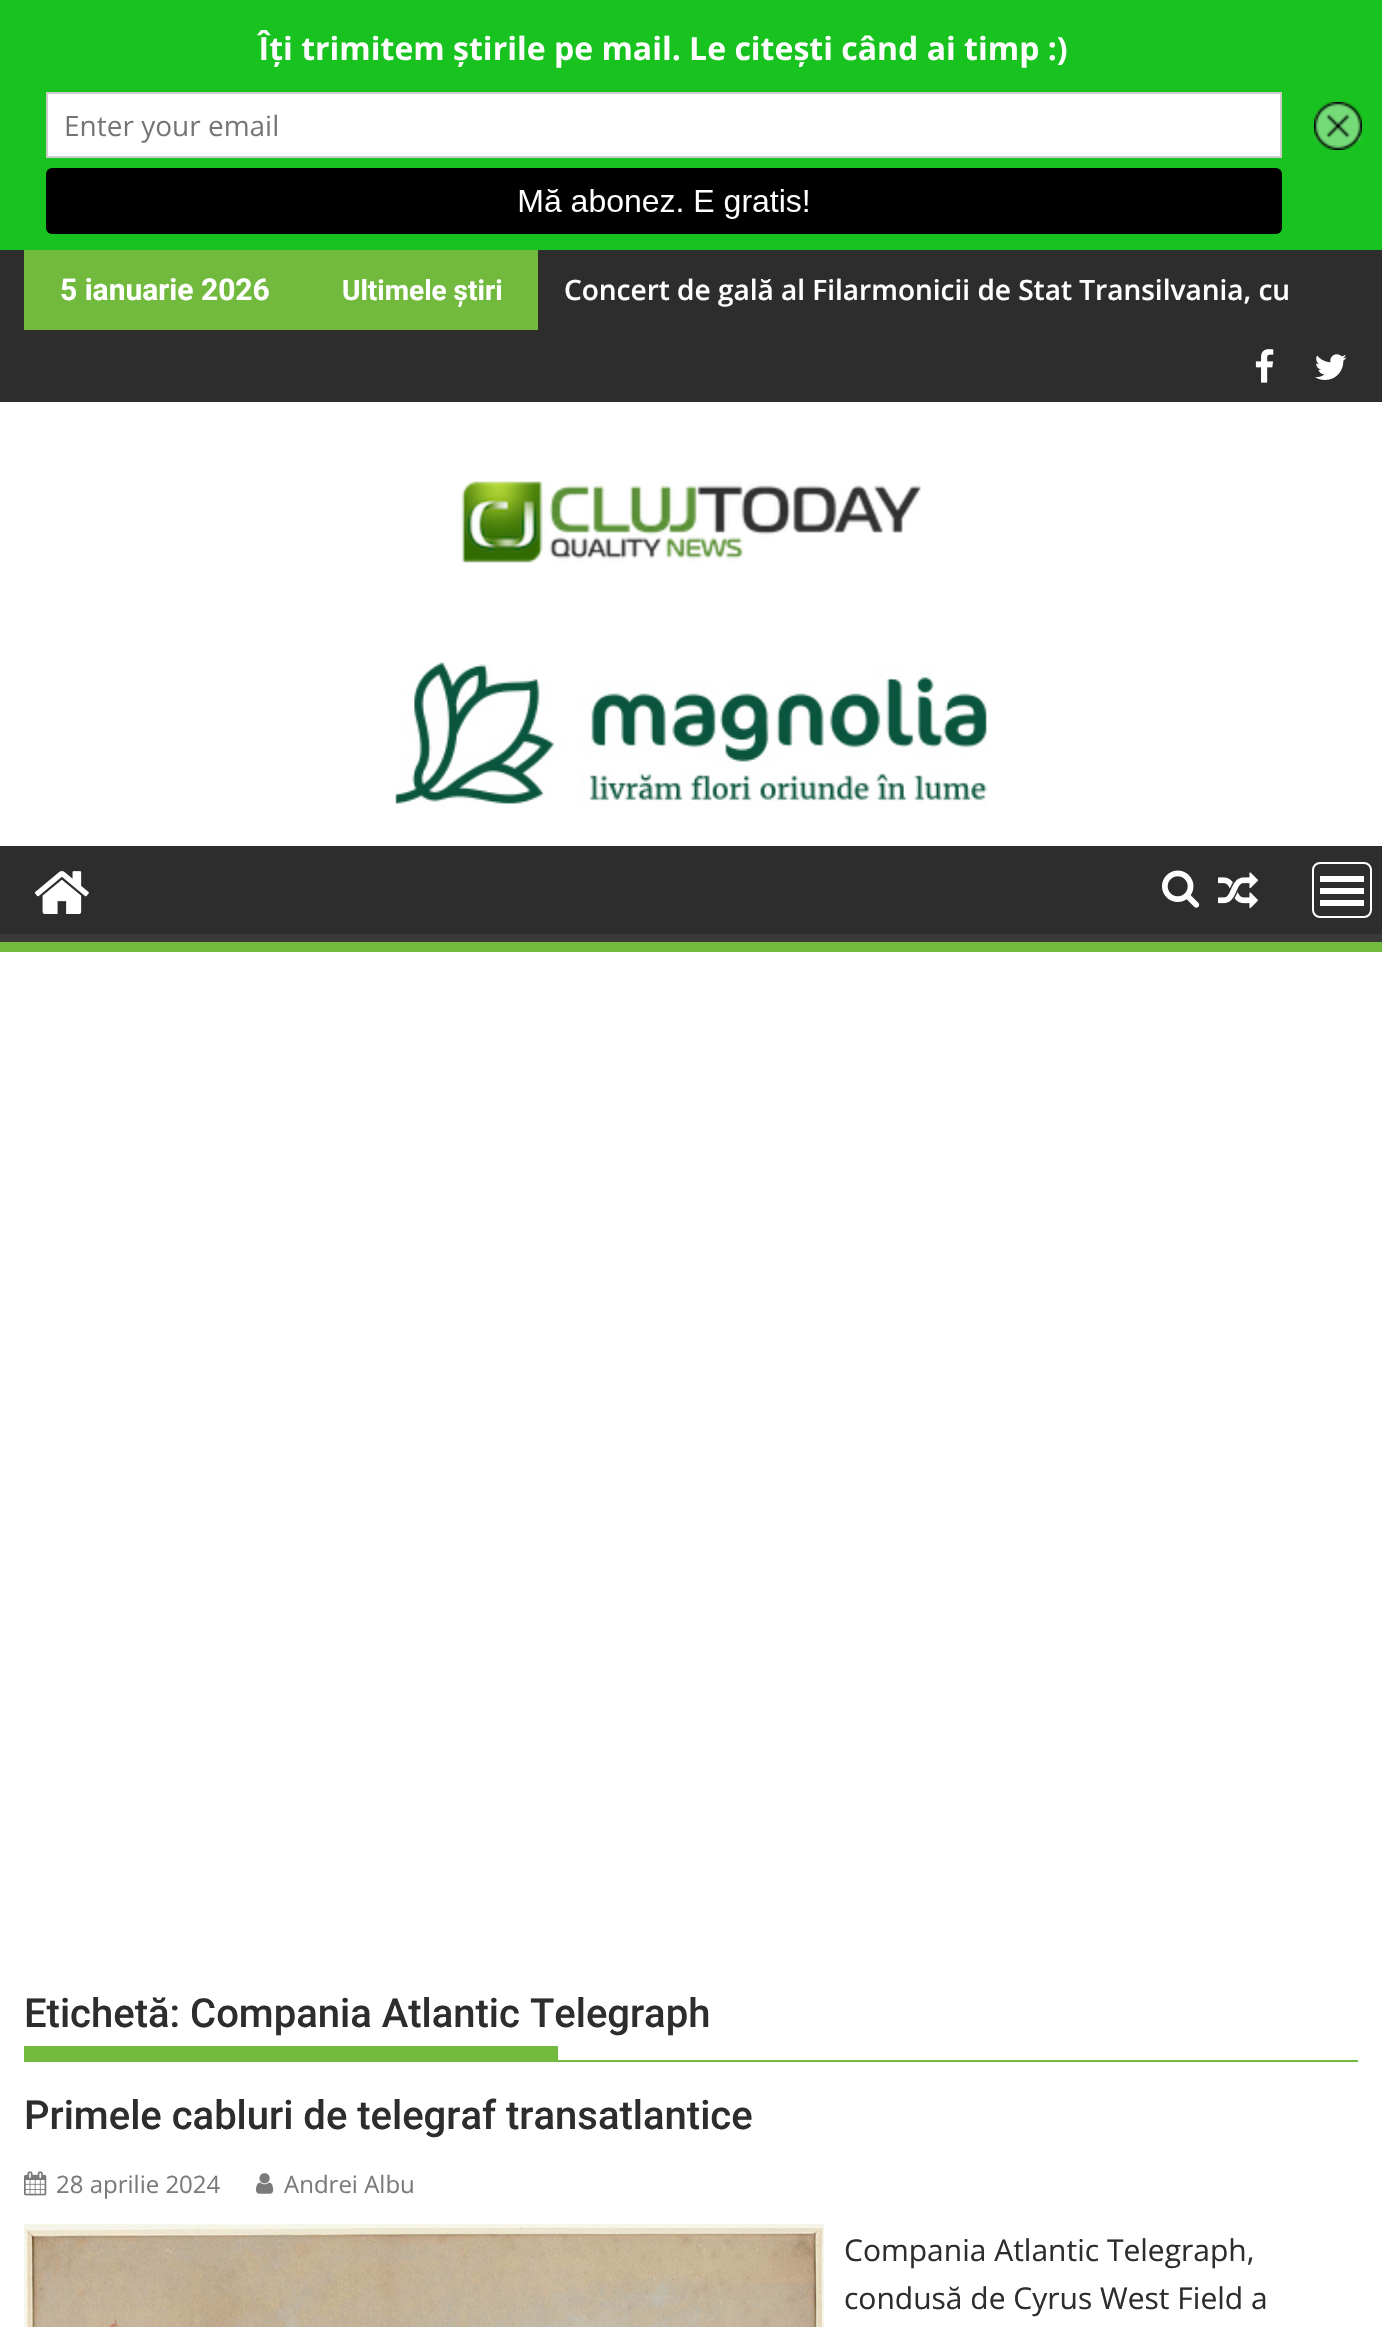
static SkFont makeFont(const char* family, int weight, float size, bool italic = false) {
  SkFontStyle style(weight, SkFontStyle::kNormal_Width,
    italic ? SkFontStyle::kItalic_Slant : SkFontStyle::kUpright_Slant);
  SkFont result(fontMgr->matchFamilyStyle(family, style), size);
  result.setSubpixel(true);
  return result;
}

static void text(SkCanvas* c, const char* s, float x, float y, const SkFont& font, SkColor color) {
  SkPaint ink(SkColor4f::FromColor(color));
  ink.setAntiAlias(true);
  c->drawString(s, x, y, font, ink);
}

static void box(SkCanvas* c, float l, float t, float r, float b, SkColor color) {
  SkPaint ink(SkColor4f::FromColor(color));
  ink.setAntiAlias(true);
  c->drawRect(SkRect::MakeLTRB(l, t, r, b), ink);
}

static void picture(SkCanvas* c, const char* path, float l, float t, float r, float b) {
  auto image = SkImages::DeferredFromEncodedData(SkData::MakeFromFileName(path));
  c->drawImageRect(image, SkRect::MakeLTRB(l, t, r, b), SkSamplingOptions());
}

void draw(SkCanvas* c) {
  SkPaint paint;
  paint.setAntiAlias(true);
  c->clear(0xffffffff);
  picture(c, "img_01.png", 0, 0, 1382, 250);
  box(c, 0, 250, 1382, 402, 0xff2d2d2d);
  box(c, 24, 250, 538, 330, 0xff71ba3d);
  SkFont face1 = makeFont("Roboto", 700, 30);
  text(c, "5 ianuarie 2026", 60, 300, face1, 0xffffffff);
  SkFont face2 = makeFont("Roboto", 700, 28);
  text(c, "Ultimele știri", 342, 300, face2, 0xffffffff);
  SkFont face3 = makeFont("Open Sans", 600, 28);
  text(c, "Concert de gală al Filarmonicii de Stat Transilvania, cu", 564, 300, face3, 0xffffffff);
  picture(c, "img_02.png", 1255, 349, 1274, 383);
  picture(c, "img_03.png", 1315, 354, 1347, 380);
  picture(c, "img_04.png", 461, 481, 922, 563);
  picture(c, "img_05.png", 395, 662, 987, 808);
  box(c, 0, 846, 1382, 934, 0xff2d2d2d);
  c->save();
  c->clipRect(SkRect::MakeLTRB(0, 846, 1382, 942));
  paint.setColor(0xff393939);
  c->drawPath(SkPathBuilder(SkPathFillType::kEvenOdd).moveTo(-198, 648).lineTo(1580, 648).lineTo(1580, 1140).lineTo(-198, 1140).close().moveTo(-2, 834).lineTo(1380, 834).cubicTo(1381, 834, 1382, 835, 1382, 836).lineTo(1382, 932).cubicTo(1382, 933, 1381, 934, 1380, 934).lineTo(-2, 934).cubicTo(-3, 934, -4, 933, -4, 932).lineTo(-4, 836).cubicTo(-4, 835, -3, 834, -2, 834).close().detach(), paint);
  c->restore();
  box(c, 0, 942, 1382, 952, 0xff71ba3d);
  picture(c, "img_06.png", 34, 871, 89, 914);
  picture(c, "img_07.png", 1162, 870, 1200, 908);
  picture(c, "img_08.png", 1218, 872, 1258, 909);
  paint.setStyle(SkPaint::kStroke_Style);
  paint.setStrokeWidth(2);
  paint.setColor(0xffffffff);
  c->drawRoundRect(SkRect::MakeLTRB(1313, 863, 1371, 917), 7, 7, paint);
  box(c, 1320, 900, 1364, 906, 0xffffffff);
  box(c, 1320, 888, 1364, 894, 0xffffffff);
  box(c, 1320, 876, 1364, 882, 0xffffffff);
  box(c, 24, 2060, 1358, 2062, 0xff71ba3d);
  SkFont face4 = makeFont("Roboto", 500, 40);
  text(c, "Etichetă: Compania Atlantic Telegraph", 24, 2027, face4, 0xff2d2d2d);
  box(c, 24, 2046, 558, 2060, 0xff71ba3d);
  text(c, "Primele cabluri de telegraf transatlantice", 24, 2129, face4, 0xff2d2d2d);
  picture(c, "img_09.png", 24, 2171, 47, 2196);
  SkFont face5 = makeFont("Open Sans", 400, 24);
  text(c, "28 aprilie 2024", 56, 2193, face5, 0xff7a7a7a);
  picture(c, "img_10.png", 256, 2173, 274, 2194);
  text(c, "Andrei Albu", 284, 2193, face5, 0xff7a7a7a);
  picture(c, "img_11.png", 24, 2224, 824, 2327);
  SkFont face6 = makeFont("Open Sans", 400, 30);
  text(c, "Compania Atlantic Telegraph,", 844, 2261, face6, 0xff2d2d2d);
  text(c, "condusă de Cyrus West Field a", 844, 2309, face6, 0xff2d2d2d);
}
